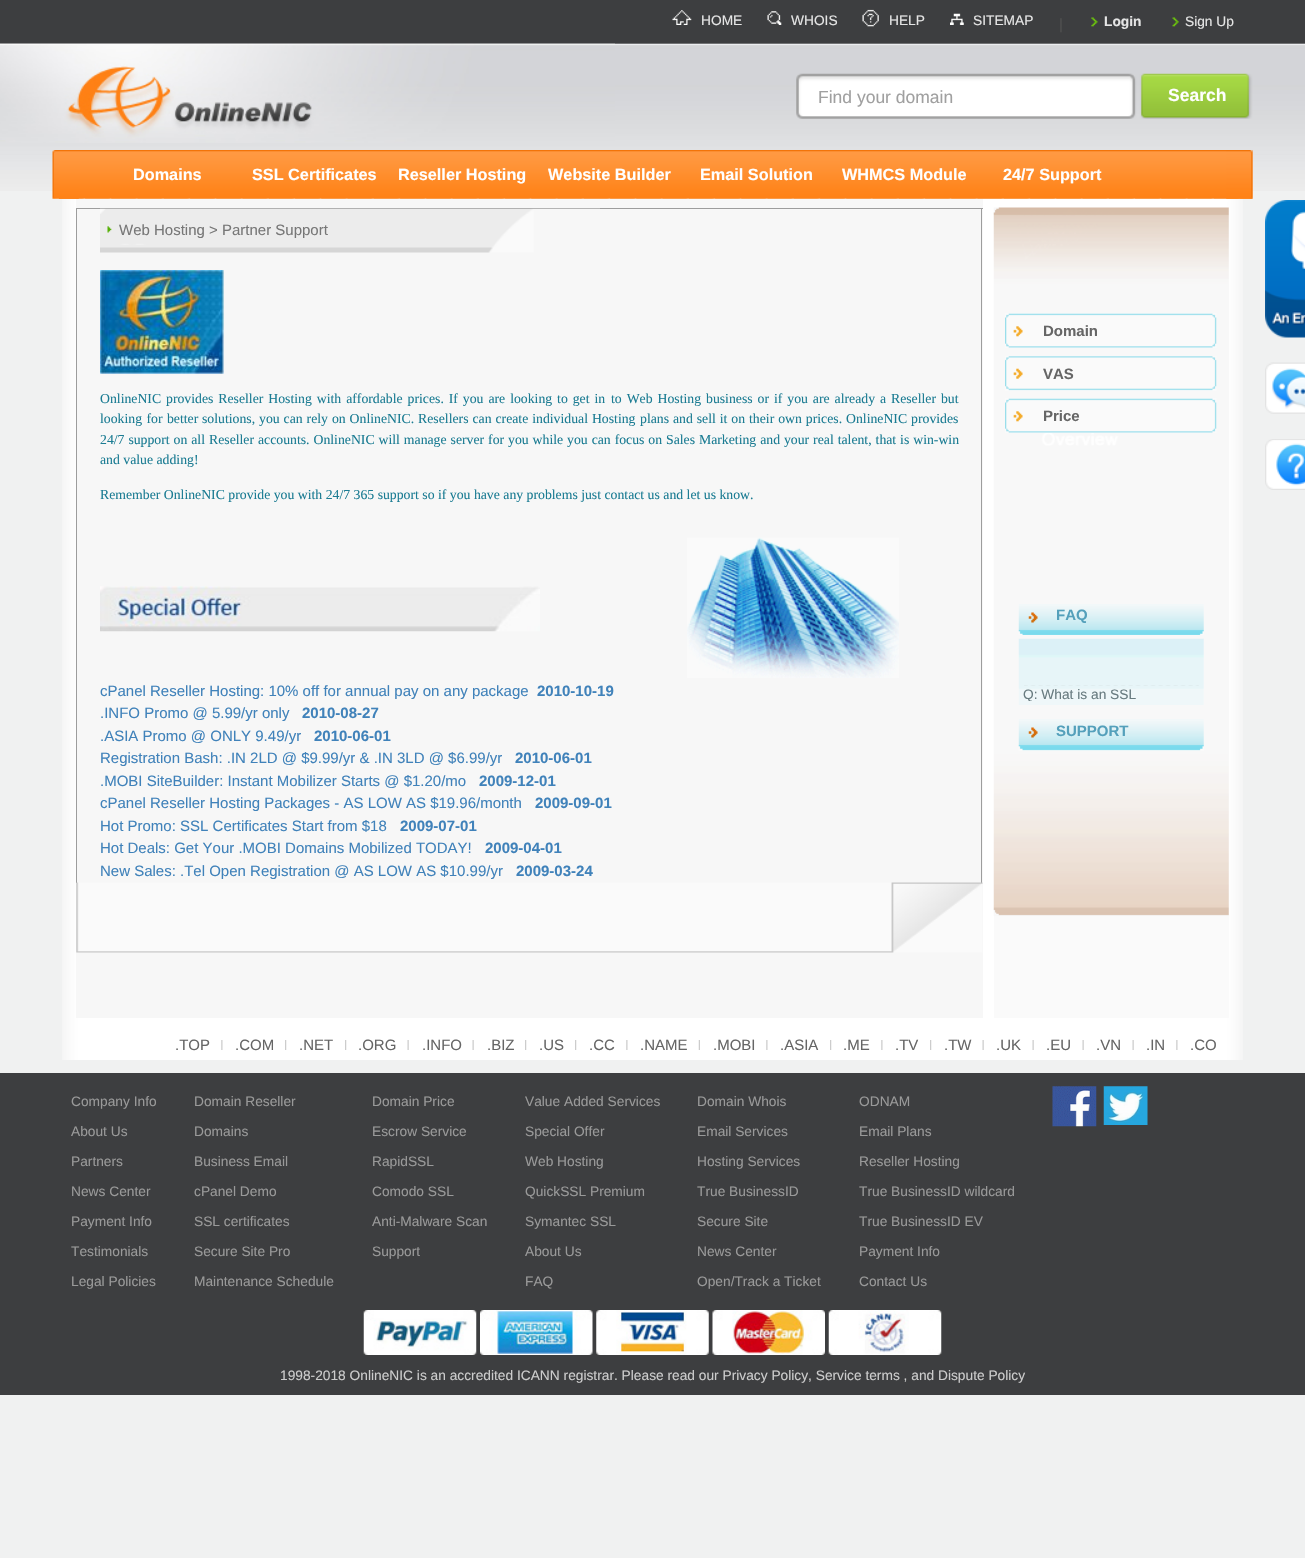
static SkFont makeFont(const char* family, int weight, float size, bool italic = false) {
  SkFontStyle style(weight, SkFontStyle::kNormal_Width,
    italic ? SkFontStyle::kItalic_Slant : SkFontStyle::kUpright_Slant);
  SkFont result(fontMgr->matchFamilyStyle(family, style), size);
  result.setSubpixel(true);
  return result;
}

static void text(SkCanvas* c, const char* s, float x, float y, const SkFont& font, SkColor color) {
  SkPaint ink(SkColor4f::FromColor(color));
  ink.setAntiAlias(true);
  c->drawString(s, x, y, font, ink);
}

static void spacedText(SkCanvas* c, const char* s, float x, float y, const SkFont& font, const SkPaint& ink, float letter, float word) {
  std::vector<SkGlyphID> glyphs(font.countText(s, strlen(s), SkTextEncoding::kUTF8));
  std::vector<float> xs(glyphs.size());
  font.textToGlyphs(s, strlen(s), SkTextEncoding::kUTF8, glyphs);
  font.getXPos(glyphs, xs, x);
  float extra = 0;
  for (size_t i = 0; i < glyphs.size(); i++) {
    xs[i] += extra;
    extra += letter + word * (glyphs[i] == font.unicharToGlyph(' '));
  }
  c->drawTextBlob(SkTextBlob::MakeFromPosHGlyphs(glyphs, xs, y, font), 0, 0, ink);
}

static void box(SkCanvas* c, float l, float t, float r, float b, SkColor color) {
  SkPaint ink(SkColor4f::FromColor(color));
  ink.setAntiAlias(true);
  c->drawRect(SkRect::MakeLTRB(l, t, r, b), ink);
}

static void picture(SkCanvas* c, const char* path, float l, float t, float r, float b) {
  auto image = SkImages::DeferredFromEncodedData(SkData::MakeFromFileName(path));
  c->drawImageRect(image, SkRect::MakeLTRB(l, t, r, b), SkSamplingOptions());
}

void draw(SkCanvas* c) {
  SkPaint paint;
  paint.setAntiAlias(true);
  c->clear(0xfff0f1f1);
  picture(c, "img_01.png", 0, 0, 1305, 191);
  picture(c, "img_02.png", 672, 10, 692, 25);
  SkFont face1 = makeFont("Liberation Sans", 400, 13.75f);
  text(c, "HOME", 701, 25, face1, 0xffe5e5e5);
  picture(c, "img_03.png", 767, 11, 782, 25);
  text(c, "WHOIS", 791, 25, face1, 0xffe5e5e5);
  picture(c, "img_04.png", 862, 9, 879, 27);
  text(c, "HELP", 889, 25, face1, 0xffe5e5e5);
  picture(c, "img_05.png", 950, 13, 964, 25);
  text(c, "SITEMAP", 973, 25, face1, 0xffe5e5e5);
  SkFont face2 = makeFont("Liberation Sans", 400, 15);
  text(c, "|", 1059, 29, face2, 0xff505050);
  picture(c, "img_06.png", 1091, 17, 1098, 27);
  SkFont face3 = makeFont("Liberation Sans", 700, 13.75f);
  text(c, "Login", 1104, 26, face3, 0xffe5e5e5);
  picture(c, "img_07.png", 1172, 17, 1179, 27);
  text(c, "Sign Up", 1185, 26, face1, 0xffe5e5e5);
  picture(c, "img_08.png", 0, 43, 615, 143);
  picture(c, "img_09.png", 796, 73, 1253, 119);
  SkFont face4 = makeFont("Liberation Sans", 400, 17.5f);
  text(c, "Find your domain", 818, 103, face4, 0xffa0a0a0);
  SkFont face5 = makeFont("Liberation Sans", 700, 17.5f);
  text(c, "Search", 1168, 101, face5, 0xffffffff);
  picture(c, "img_10.png", 52, 150, 79, 199);
  picture(c, "img_11.png", 58, 150, 1253, 199);
  picture(c, "img_12.png", 1226, 150, 1253, 199);
  SkFont face6 = makeFont("Liberation Sans", 700, 16.25f);
  text(c, "Domains", 133, 180, face6, 0xffffffff);
  text(c, "SSL Certificates", 252, 180, face6, 0xffffffff);
  text(c, "Reseller Hosting", 398, 180, face6, 0xffffffff);
  text(c, "Website Builder", 548, 180, face6, 0xffffffff);
  text(c, "Email Solution", 700, 180, face6, 0xffffffff);
  text(c, "WHMCS Module", 842, 180, face6, 0xffffffff);
  text(c, "24/7 Support", 1003, 180, face6, 0xffffffff);
  picture(c, "img_13.png", 62, 199, 1243, 1060);
  box(c, 76, 199, 983, 1018, 0xfff7f7f7);
  box(c, 76, 208, 983, 209, 0xff9d9d9d);
  box(c, 981, 208, 982, 883, 0xff9d9d9d);
  box(c, 76, 208, 77, 883, 0xff9d9d9d);
  picture(c, "img_14.png", 100, 208, 600, 253);
  text(c, "Web Hosting > Partner Support", 119, 235, face2, 0xff777777);
  picture(c, "img_15.png", 100, 270, 224, 374);
  SkFont face7 = makeFont("Liberation Serif", 400, 13.75f);
  text(c, "OnlineNIC", 100, 403, face7, 0xff1b7c93);
  paint.setColor(0xff1b7c93);
  spacedText(c, "provides Reseller Hosting with affordable prices. If you are looking to get in", 166, 403, face7, paint, 0, 1.5f);
  spacedText(c, "to Web Hosting business or if you are already a Reseller but", 611, 403, face7, paint, 0, 1.5f);
  spacedText(c, "looking for better", 100, 423, face7, paint, 0, 1);
  spacedText(c, "solutions, you can rely on OnlineNIC. Resellers can create individual Hosting", 202, 423, face7, paint, 0, 0.5f);
  spacedText(c, "plans and sell it on their own prices. OnlineNIC provides", 640, 423, face7, paint, 0, 0.5f);
  spacedText(c, "24/7 support on all", 100, 444, face7, paint, 0, 0.5f);
  spacedText(c, "Reseller accounts. OnlineNIC will manage server for you while you can focus on", 209, 444, face7, paint, 0, 0.5f);
  spacedText(c, "Sales Marketing and your real talent, that is win-win", 666, 444, face7, paint, 0, 0.5f);
  text(c, "and value adding!", 100, 464, face7, 0xff1b7c93);
  text(c, "Remember OnlineNIC provide you with 24/7 365 support so if you have any problems just contact us and let us know.", 100, 499, face7, 0xff1b7c93);
  picture(c, "img_16.png", 100, 586, 540, 632);
  picture(c, "img_17.png", 687, 537, 899, 678);
  text(c, "cPanel Reseller Hosting: 10% off for annual pay on any package", 100, 696, face2, 0xff4082ba);
  SkFont face8 = makeFont("Liberation Sans", 700, 15);
  text(c, "2010-10-19", 537, 696, face8, 0xff4082ba);
  text(c, ".INFO Promo @ 5.99/yr only", 100, 718, face2, 0xff4082ba);
  text(c, "2010-08-27", 302, 718, face8, 0xff4082ba);
  text(c, ".ASIA Promo @ ONLY 9.49/yr", 100, 741, face2, 0xff4082ba);
  text(c, "2010-06-01", 314, 741, face8, 0xff4082ba);
  text(c, "Registration Bash: .IN 2LD @ $9.99/yr & .IN 3LD @ $6.99/yr", 100, 763, face2, 0xff4082ba);
  text(c, "2010-06-01", 515, 763, face8, 0xff4082ba);
  text(c, ".MOBI SiteBuilder: Instant Mobilizer Starts @ $1.20/mo", 100, 786, face2, 0xff4082ba);
  text(c, "2009-12-01", 479, 786, face8, 0xff4082ba);
  text(c, "cPanel Reseller Hosting Packages - AS LOW AS $19.96/month", 100, 808, face2, 0xff4082ba);
  text(c, "2009-09-01", 535, 808, face8, 0xff4082ba);
  text(c, "Hot Promo: SSL Certificates Start from $18", 100, 831, face2, 0xff4082ba);
  text(c, "2009-07-01", 400, 831, face8, 0xff4082ba);
  text(c, "Hot Deals: Get Your .MOBI Domains Mobilized TODAY!", 100, 853, face2, 0xff4082ba);
  text(c, "2009-04-01", 485, 853, face8, 0xff4082ba);
  text(c, "New Sales: .Tel Open Registration @ AS LOW AS $10.99/yr", 100, 876, face2, 0xff4082ba);
  text(c, "2009-03-24", 516, 876, face8, 0xff4082ba);
  picture(c, "img_18.png", 76, 882, 983, 953);
  box(c, 994, 208, 1229, 1018, 0xfffafafa);
  picture(c, "img_19.png", 993, 207, 1229, 916);
  picture(c, "img_20.png", 1005, 313, 1217, 348);
  text(c, "Domain", 1043, 336, face8, 0xff666666);
  picture(c, "img_21.png", 1005, 356, 1217, 391);
  text(c, "VAS", 1043, 379, face8, 0xff666666);
  picture(c, "img_22.png", 1005, 398, 1217, 433);
  text(c, "Price", 1043, 421, face8, 0xff666666);
  picture(c, "img_23.png", 1018, 604, 1204, 635);
  text(c, "FAQ", 1056, 620, face8, 0xff54a0bb);
  picture(c, "img_24.png", 1018, 638, 1204, 705);
  picture(c, "img_25.png", 1024, 685, 1199, 686);
  c->save();
  c->clipRect(SkRect::MakeLTRB(1023, 639, 1199, 701));
  text(c, "Q: What is an SSL", 1023, 699, face1, 0xff687b80);
  c->restore();
  picture(c, "img_26.png", 1018, 719, 1204, 751);
  text(c, "SUPPORT", 1056, 736, face8, 0xff54a0bb);
  picture(c, "img_27.png", 221, 1040, 223, 1050);
  text(c, ".TOP", 175, 1050, face2, 0xff666666);
  picture(c, "img_28.png", 285, 1040, 287, 1050);
  text(c, ".COM", 235, 1050, face2, 0xff666666);
  picture(c, "img_28.png", 345, 1040, 347, 1050);
  text(c, ".NET", 299, 1050, face2, 0xff666666);
  picture(c, "img_29.png", 407, 1040, 409, 1050);
  text(c, ".ORG", 358, 1050, face2, 0xff666666);
  picture(c, "img_29.png", 472, 1040, 474, 1050);
  text(c, ".INFO", 422, 1050, face2, 0xff666666);
  picture(c, "img_28.png", 525, 1040, 527, 1050);
  text(c, ".BIZ", 487, 1050, face2, 0xff666666);
  picture(c, "img_28.png", 575, 1040, 577, 1050);
  text(c, ".US", 539, 1050, face2, 0xff666666);
  picture(c, "img_27.png", 626, 1040, 628, 1050);
  text(c, ".CC", 589, 1050, face2, 0xff666666);
  picture(c, "img_30.png", 698, 1040, 700, 1050);
  text(c, ".NAME", 640, 1050, face2, 0xff666666);
  picture(c, "img_27.png", 766, 1040, 768, 1050);
  text(c, ".MOBI", 713, 1050, face2, 0xff666666);
  picture(c, "img_28.png", 830, 1040, 832, 1050);
  text(c, ".ASIA", 780, 1050, face2, 0xff666666);
  picture(c, "img_27.png", 881, 1040, 883, 1050);
  text(c, ".ME", 843, 1050, face2, 0xff666666);
  picture(c, "img_28.png", 930, 1040, 932, 1050);
  text(c, ".TV", 895, 1050, face2, 0xff666666);
  picture(c, "img_29.png", 982, 1040, 984, 1050);
  text(c, ".TW", 944, 1050, face2, 0xff666666);
  picture(c, "img_29.png", 1032, 1040, 1034, 1050);
  text(c, ".UK", 996, 1050, face2, 0xff666666);
  picture(c, "img_29.png", 1082, 1040, 1084, 1050);
  text(c, ".EU", 1046, 1050, face2, 0xff666666);
  picture(c, "img_29.png", 1132, 1040, 1134, 1050);
  text(c, ".VN", 1096, 1050, face2, 0xff666666);
  picture(c, "img_27.png", 1176, 1040, 1178, 1050);
  text(c, ".IN", 1146, 1050, face2, 0xff666666);
  text(c, ".CO", 1190, 1050, face2, 0xff666666);
  picture(c, "img_31.png", 1265, 200, 1305, 338);
  picture(c, "img_32.png", 1265, 362, 1305, 414);
  picture(c, "img_33.png", 1265, 439, 1305, 490);
  box(c, 0, 1073, 1305, 1395, 0xff3d3e40);
  text(c, "Company Info", 71, 1106, face1, 0xff999999);
  text(c, "About Us", 71, 1136, face1, 0xff999999);
  text(c, "Partners", 71, 1166, face1, 0xff999999);
  text(c, "News Center", 71, 1196, face1, 0xff999999);
  text(c, "Payment Info", 71, 1226, face1, 0xff999999);
  text(c, "Testimonials", 71, 1256, face1, 0xff999999);
  text(c, "Legal Policies", 71, 1286, face1, 0xff999999);
  text(c, "Domain Reseller", 194, 1106, face1, 0xff999999);
  text(c, "Domains", 194, 1136, face1, 0xff999999);
  text(c, "Business Email", 194, 1166, face1, 0xff999999);
  text(c, "cPanel Demo", 194, 1196, face1, 0xff999999);
  text(c, "SSL certificates", 194, 1226, face1, 0xff999999);
  text(c, "Secure Site Pro", 194, 1256, face1, 0xff999999);
  text(c, "Maintenance Schedule", 194, 1286, face1, 0xff999999);
  text(c, "Domain Price", 372, 1106, face1, 0xff999999);
  text(c, "Escrow Service", 372, 1136, face1, 0xff999999);
  text(c, "RapidSSL", 372, 1166, face1, 0xff999999);
  text(c, "Comodo SSL", 372, 1196, face1, 0xff999999);
  text(c, "Anti-Malware Scan", 372, 1226, face1, 0xff999999);
  text(c, "Support", 372, 1256, face1, 0xff999999);
  text(c, "Value Added Services", 525, 1106, face1, 0xff999999);
  text(c, "Special Offer", 525, 1136, face1, 0xff999999);
  text(c, "Web Hosting", 525, 1166, face1, 0xff999999);
  text(c, "QuickSSL Premium", 525, 1196, face1, 0xff999999);
  text(c, "Symantec SSL", 525, 1226, face1, 0xff999999);
  text(c, "About Us", 525, 1256, face1, 0xff999999);
  text(c, "FAQ", 525, 1286, face1, 0xff999999);
  text(c, "Domain Whois", 697, 1106, face1, 0xff999999);
  text(c, "Email Services", 697, 1136, face1, 0xff999999);
  text(c, "Hosting Services", 697, 1166, face1, 0xff999999);
  text(c, "True BusinessID", 697, 1196, face1, 0xff999999);
  text(c, "Secure Site", 697, 1226, face1, 0xff999999);
  text(c, "News Center", 697, 1256, face1, 0xff999999);
  text(c, "Open/Track a Ticket", 697, 1286, face1, 0xff999999);
  text(c, "ODNAM", 859, 1106, face1, 0xff999999);
  text(c, "Email Plans", 859, 1136, face1, 0xff999999);
  text(c, "Reseller Hosting", 859, 1166, face1, 0xff999999);
  text(c, "True BusinessID wildcard", 859, 1196, face1, 0xff999999);
  text(c, "True BusinessID EV", 859, 1226, face1, 0xff999999);
  text(c, "Payment Info", 859, 1256, face1, 0xff999999);
  text(c, "Contact Us", 859, 1286, face1, 0xff999999);
  picture(c, "img_34.png", 1052, 1086, 1097, 1127);
  picture(c, "img_35.png", 1103, 1086, 1148, 1125);
  picture(c, "img_36.png", 363, 1310, 477, 1355);
  picture(c, "img_37.png", 480, 1310, 593, 1355);
  picture(c, "img_38.png", 596, 1310, 709, 1355);
  picture(c, "img_39.png", 712, 1310, 825, 1355);
  picture(c, "img_40.png", 828, 1310, 942, 1355);
  text(c, "1998-2018 OnlineNIC is an accredited ICANN registrar. Please read our Privacy Policy, Service terms , and Dispute Policy", 280, 1380, face1, 0xffcccccc);
}
